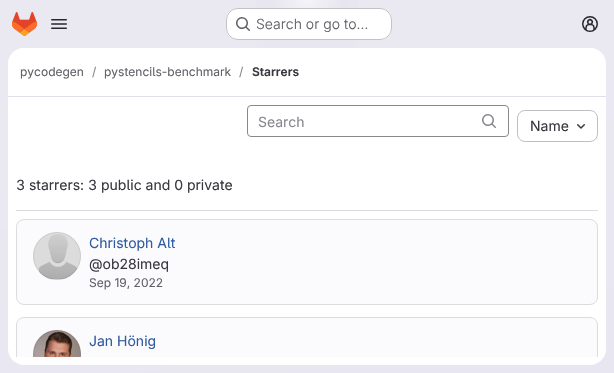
static SkFont makeFont(const char* family, int weight, float size, bool italic = false) {
  SkFontStyle style(weight, SkFontStyle::kNormal_Width,
    italic ? SkFontStyle::kItalic_Slant : SkFontStyle::kUpright_Slant);
  SkFont result(fontMgr->matchFamilyStyle(family, style), size);
  result.setSubpixel(true);
  return result;
}

static void text(SkCanvas* c, const char* s, float x, float y, const SkFont& font, SkColor color) {
  SkPaint ink(SkColor4f::FromColor(color));
  ink.setAntiAlias(true);
  c->drawString(s, x, y, font, ink);
}

static void box(SkCanvas* c, float l, float t, float r, float b, SkColor color) {
  SkPaint ink(SkColor4f::FromColor(color));
  ink.setAntiAlias(true);
  c->drawRect(SkRect::MakeLTRB(l, t, r, b), ink);
}

static void roundBox(SkCanvas* c, float l, float t, float r, float b, float radius, SkColor color) {
  SkPaint ink(SkColor4f::FromColor(color));
  ink.setAntiAlias(true);
  c->drawRoundRect(SkRect::MakeLTRB(l, t, r, b), radius, radius, ink);
}

static void picture(SkCanvas* c, const char* path, float l, float t, float r, float b) {
  auto image = SkImages::DeferredFromEncodedData(SkData::MakeFromFileName(path));
  c->drawImageRect(image, SkRect::MakeLTRB(l, t, r, b), SkSamplingOptions());
}

void draw(SkCanvas* c) {
  SkPaint paint;
  paint.setAntiAlias(true);
  c->clear(0xffffffff);
  {
    const SkColor colors[] = {0xffe8e6f0, 0xffeae9f2};
    const float stops[] = {0, 0.7f};
    const SkPoint ends[] = {{348, 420}, {266, -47}};
    paint.setShader(SkGradientShader::MakeLinear(ends, colors, stops, 2, SkTileMode::kClamp));
    paint.setAlpha(255);
  }
  c->drawRect(SkRect::MakeLTRB(0, 0, 614, 373), paint);
  {
    const SkColor colors[] = {0xffe4e2ed, 0x00e4e2ed};
    const float stops[] = {0, 0.23f};
    SkMatrix m = SkMatrix::Translate(307, 0).preScale(307, 373);
    paint.setShader(SkGradientShader::MakeRadial({0, 0}, 1, colors, stops, 2, SkTileMode::kClamp, 0, &m));
    paint.setAlpha(255);
  }
  c->drawRect(SkRect::MakeLTRB(256, 0, 358, 48), paint);
  {
    const SkColor colors[] = {0xffe4e2ec, 0x00e4e2ec};
    const float stops[] = {0, 0.16f};
    SkMatrix m = SkMatrix::Translate(307, 0).preScale(307, 373);
    paint.setShader(SkGradientShader::MakeRadial({0, 0}, 1, colors, stops, 2, SkTileMode::kClamp, 0, &m));
    paint.setAlpha(255);
  }
  c->drawRect(SkRect::MakeLTRB(301, 23, 313, 24), paint);
  {
    const SkColor colors[] = {0x99ffffff, 0x00ffffff};
    const float stops[] = {0, 0.08f};
    paint.setShader(SkGradientShader::MakeRadial({307, 0}, 483, colors, stops, 2, SkTileMode::kClamp));
    paint.setAlpha(255);
  }
  c->drawRect(SkRect::MakeLTRB(270, 0, 344, 8), paint);
  picture(c, "img_01.png", 12, 12, 37, 36);
  picture(c, "img_02.png", 51, 19, 67, 29);
  roundBox(c, 226, 8, 392, 40, 12, 0xffffffff);
  paint.setStyle(SkPaint::kStroke_Style);
  paint.setStrokeWidth(1);
  paint.setShader(nullptr);
  paint.setColor(0x3d050506);
  c->drawRoundRect(SkRect::MakeLTRB(226.5f, 8.5f, 391.5f, 39.5f), 11.5f, 11.5f, paint);
  picture(c, "img_03.png", 236, 17, 250, 31);
  SkFont face1 = makeFont("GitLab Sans", 300, 14);
  text(c, "Search or go to…", 256, 29, face1, 0xff626168);
  picture(c, "img_04.png", 582, 16, 598, 32);
  roundBox(c, 8, 48, 606, 365, 16, 0xffffffff);
  paint.setStyle(SkPaint::kFill_Style);
  paint.setColor(0xffffffff);
  c->drawPath(SkPathBuilder().moveTo(24, 48).lineTo(590, 48).cubicTo(599, 48, 606, 55, 606, 64).lineTo(606, 97).lineTo(8, 97).lineTo(8, 64).cubicTo(8, 55, 15, 48, 24, 48).close().detach(), paint);
  box(c, 8, 96, 606, 97, 0xffe1dfec);
  SkFont face2 = makeFont("GitLab Sans", 400, 12);
  text(c, "pycodegen", 20, 76, face2, 0xff626168);
  text(c, "/", 92, 76, face2, 0xff89888d);
  text(c, "pystencils-benchmark", 104, 76, face2, 0xff626168);
  text(c, "/", 239, 76, face2, 0xff89888d);
  SkFont face3 = makeFont("GitLab Sans", 600, 12);
  text(c, "Starrers", 252, 76, face3, 0xff3a383f);
  box(c, 16, 210, 598, 211, 0xffdcdcde);
  paint.setStyle(SkPaint::kStroke_Style);
  paint.setColor(0xff89888d);
  c->drawRoundRect(SkRect::MakeLTRB(247.5f, 105.5f, 508.5f, 136.5f), 3.5f, 3.5f, paint);
  SkFont face4 = makeFont("GitLab Sans", 400, 14);
  text(c, "Search", 258, 127, face4, 0xff89888d);
  picture(c, "img_05.png", 482, 114, 496, 128);
  paint.setColor(0xffbfbfc3);
  c->drawRoundRect(SkRect::MakeLTRB(517.5f, 110.5f, 597.5f, 141.5f), 7.5f, 7.5f, paint);
  text(c, "Name", 530, 131, face4, 0xff3a383f);
  picture(c, "img_06.png", 577, 124, 585, 129);
  text(c, "3 starrers: 3 public and 0 private", 16, 190, face4, 0xff3a383f);
  paint.setStyle(SkPaint::kFill_Style);
  paint.setColor(0xfffbfafd);
  c->drawRoundRect(SkRect::MakeLTRB(16.5f, 219.5f, 597.5f, 304.5f), 7.5f, 7.5f, paint);
  paint.setStyle(SkPaint::kStroke_Style);
  paint.setColor(0xffdcdcde);
  c->drawRoundRect(SkRect::MakeLTRB(16.5f, 219.5f, 597.5f, 304.5f), 7.5f, 7.5f, paint);
  picture(c, "img_07.png", 33, 232, 81, 280);
  paint.setColor(0x14050506);
  c->drawCircle(57, 256, 23.5f, paint);
  text(c, "Christoph Alt", 89, 248, face4, 0xff2f5ca0);
  text(c, "@ob28imeq", 89, 269, face4, 0xff3a383f);
  text(c, "Sep 19, 2022", 89, 287, face2, 0xff626168);
  paint.setStyle(SkPaint::kFill_Style);
  paint.setColor(0xfffbfafd);
  c->drawPath(SkPathBuilder().moveTo(24, 317).lineTo(590, 317).cubicTo(594.5f, 317, 598, 320.5f, 598, 325).lineTo(598, 357).lineTo(16, 357).lineTo(16, 325).cubicTo(16, 320.5f, 19.5f, 317, 24, 317).close().detach(), paint);
  c->save();
  c->clipRect(SkRect::MakeLTRB(8, 97, 606, 357));
  paint.setColor(0xffdcdcde);
  c->drawPath(SkPathBuilder().moveTo(24, 317).cubicTo(20, 317, 16, 321, 16, 325).lineTo(16, 363).lineTo(17, 363).lineTo(17, 325).cubicTo(17, 321, 20, 318, 24, 318).lineTo(590, 318).cubicTo(594, 318, 597, 321, 597, 325).lineTo(597, 363).lineTo(598, 363).lineTo(598, 325).cubicTo(598, 321, 594, 317, 590, 317).close().detach(), paint);
  c->restore();
  picture(c, "img_08.png", 33, 330, 81, 357);
  c->save();
  c->clipRect(SkRect::MakeLTRB(8, 97, 606, 357));
  paint.setColor(0x14050506);
  c->drawPath(SkPathBuilder().moveTo(57, 330).cubicTo(39, 330, 28, 350, 36, 365).lineTo(37, 365).cubicTo(26, 345, 50, 321, 70, 335).cubicTo(74, 337, 76, 341, 78, 345).cubicTo(81, 351, 81, 359, 77, 365).lineTo(78, 365).cubicTo(86, 350, 75, 330, 57, 330).close().detach(), paint);
  c->restore();
  text(c, "Jan Hönig", 89, 346, face4, 0xff2f5ca0);
}
